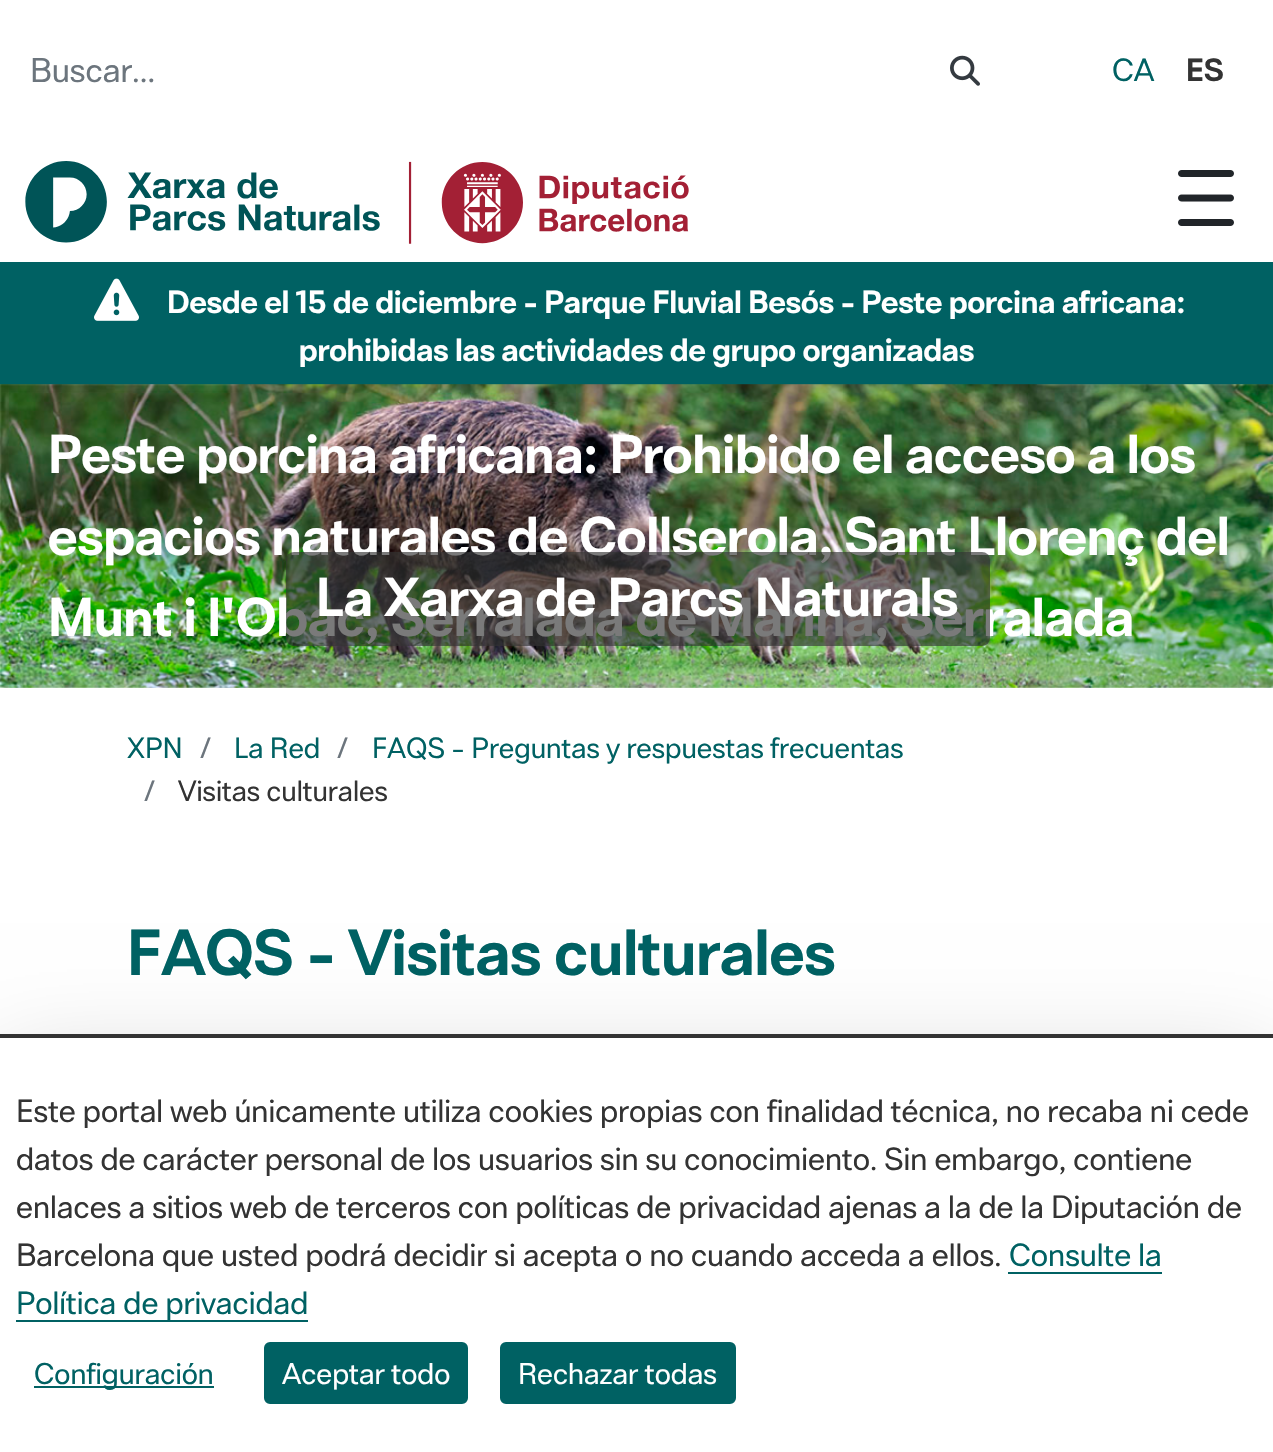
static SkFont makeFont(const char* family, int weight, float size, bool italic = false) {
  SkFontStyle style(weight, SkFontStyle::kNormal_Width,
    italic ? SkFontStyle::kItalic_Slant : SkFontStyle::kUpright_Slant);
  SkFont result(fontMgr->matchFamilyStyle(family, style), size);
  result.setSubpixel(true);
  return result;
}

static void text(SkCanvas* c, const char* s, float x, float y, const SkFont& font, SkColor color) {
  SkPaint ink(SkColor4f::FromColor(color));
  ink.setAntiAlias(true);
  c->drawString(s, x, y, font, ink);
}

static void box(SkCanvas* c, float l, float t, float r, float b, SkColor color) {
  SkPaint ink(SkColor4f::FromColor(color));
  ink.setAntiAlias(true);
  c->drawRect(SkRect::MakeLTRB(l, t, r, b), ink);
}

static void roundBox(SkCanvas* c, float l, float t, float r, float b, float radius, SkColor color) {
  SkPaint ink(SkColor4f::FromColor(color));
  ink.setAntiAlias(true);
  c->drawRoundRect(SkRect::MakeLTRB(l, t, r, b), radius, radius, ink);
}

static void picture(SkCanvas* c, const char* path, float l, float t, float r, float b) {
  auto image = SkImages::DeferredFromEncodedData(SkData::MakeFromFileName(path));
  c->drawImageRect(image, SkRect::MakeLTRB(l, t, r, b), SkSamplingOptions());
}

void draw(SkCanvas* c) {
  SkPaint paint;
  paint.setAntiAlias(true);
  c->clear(0xffffffff);
  SkFont face1 = makeFont("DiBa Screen", 400, 32);
  text(c, "Buscar...", 30, 82, face1, 0xff6c757d);
  picture(c, "img_01.png", 950, 55, 980, 86);
  SkFont face2 = makeFont("DiBa Screen", 400, 30);
  text(c, "CA", 1112, 81, face2, 0xff006163);
  SkFont face3 = makeFont("DiBa Screen", 600, 30);
  text(c, "ES", 1186, 81, face3, 0xff333333);
  picture(c, "img_02.png", 25, 161, 689, 244);
  picture(c, "img_03.png", 1178, 170, 1234, 226);
  box(c, 0, 262, 1273, 385, 0xff006163);
  picture(c, "img_04.png", 94, 278, 139, 321);
  text(c, "Desde el 15 de diciembre - Parque Fluvial Besós - Peste porcina africana:", 167, 313, face3, 0xffffffff);
  text(c, "prohibidas las actividades de grupo organizadas", 299, 361, face3, 0xffffffff);
  picture(c, "img_05.png", 0, 384, 1273, 688);
  SkFont face4 = makeFont("DiBa Screen", 600, 51);
  text(c, "Peste porcina africana: Prohibido el acceso a los", 48, 473, face4, 0xffffffff);
  text(c, "espacios naturales de Collserola, Sant Llorenç del", 48, 555, face4, 0xffffffff);
  text(c, "Munt i l'Obac, Serralada de Marina, Serralada", 48, 636, face4, 0xffffffff);
  roundBox(c, 286, 552, 990, 646, 8, 0xa6333333);
  text(c, "La Xarxa de Parcs Naturals", 316, 616, face4, 0xffffffff);
  SkFont face5 = makeFont("DiBa Screen", 400, 27.25f);
  text(c, "XPN", 127, 758, face5, 0xff006163);
  text(c, "/", 199, 758, face5, 0xff6c757d);
  text(c, "La Red", 234, 758, face5, 0xff006163);
  text(c, "/", 336, 758, face5, 0xff6c757d);
  text(c, "FAQS - Preguntas y respuestas frecuentas", 372, 758, face5, 0xff006163);
  text(c, "/", 143, 801, face5, 0xff6c757d);
  text(c, "Visitas culturales", 178, 801, face5, 0xff333333);
  SkFont face6 = makeFont("DiBa Screen", 600, 60.75f);
  text(c, "FAQS - Visitas culturales", 127, 975, face6, 0xff006163);
  paint.setColor(0x2e000000);
  paint.setMaskFilter(SkMaskFilter::MakeBlur(kNormal_SkBlurStyle, 48));
  c->drawRect(SkRect::MakeLTRB(0, 1066, 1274, 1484), paint);
  paint.setMaskFilter(nullptr);
  box(c, 0, 1038, 1273, 1452, 0xffffffff);
  box(c, 0, 1034, 1273, 1038, 0xff333333);
  text(c, "Este portal web únicamente utiliza cookies propias con finalidad técnica, no recaba ni cede", 16, 1122, face2, 0xff333333);
  text(c, "datos de carácter personal de los usuarios sin su conocimiento. Sin embargo, contiene", 16, 1170, face2, 0xff333333);
  text(c, "enlaces a sitios web de terceros con políticas de privacidad ajenas a la de la Diputación de", 16, 1218, face2, 0xff333333);
  text(c, "Barcelona que usted podrá decidir si acepta o no cuando acceda a ellos.", 16, 1266, face2, 0xff333333);
  text(c, "Consulte la", 1009, 1266, face2, 0xff006163);
  box(c, 1008, 1272, 1162, 1274, 0xff006163);
  text(c, "Política de privacidad", 16, 1314, face2, 0xff006163);
  box(c, 16, 1320, 308, 1322, 0xff006163);
  box(c, 34, 1386, 214, 1388, 0xff006163);
  SkFont face7 = makeFont("DiBa Screen", 400, 28);
  text(c, "Configuración", 34, 1384, face7, 0xff006163);
  paint.setColor(0xff006163);
  c->drawRoundRect(SkRect::MakeLTRB(265, 1343, 467, 1403), 5, 5, paint);
  paint.setStyle(SkPaint::kStroke_Style);
  paint.setStrokeWidth(2);
  c->drawRoundRect(SkRect::MakeLTRB(265, 1343, 467, 1403), 5, 5, paint);
  text(c, "Aceptar todo", 282, 1384, face7, 0xffffffff);
  paint.setStyle(SkPaint::kFill_Style);
  c->drawRoundRect(SkRect::MakeLTRB(501, 1343, 735, 1403), 5, 5, paint);
  paint.setStyle(SkPaint::kStroke_Style);
  c->drawRoundRect(SkRect::MakeLTRB(501, 1343, 735, 1403), 5, 5, paint);
  text(c, "Rechazar todas", 518, 1384, face7, 0xffffffff);
}
